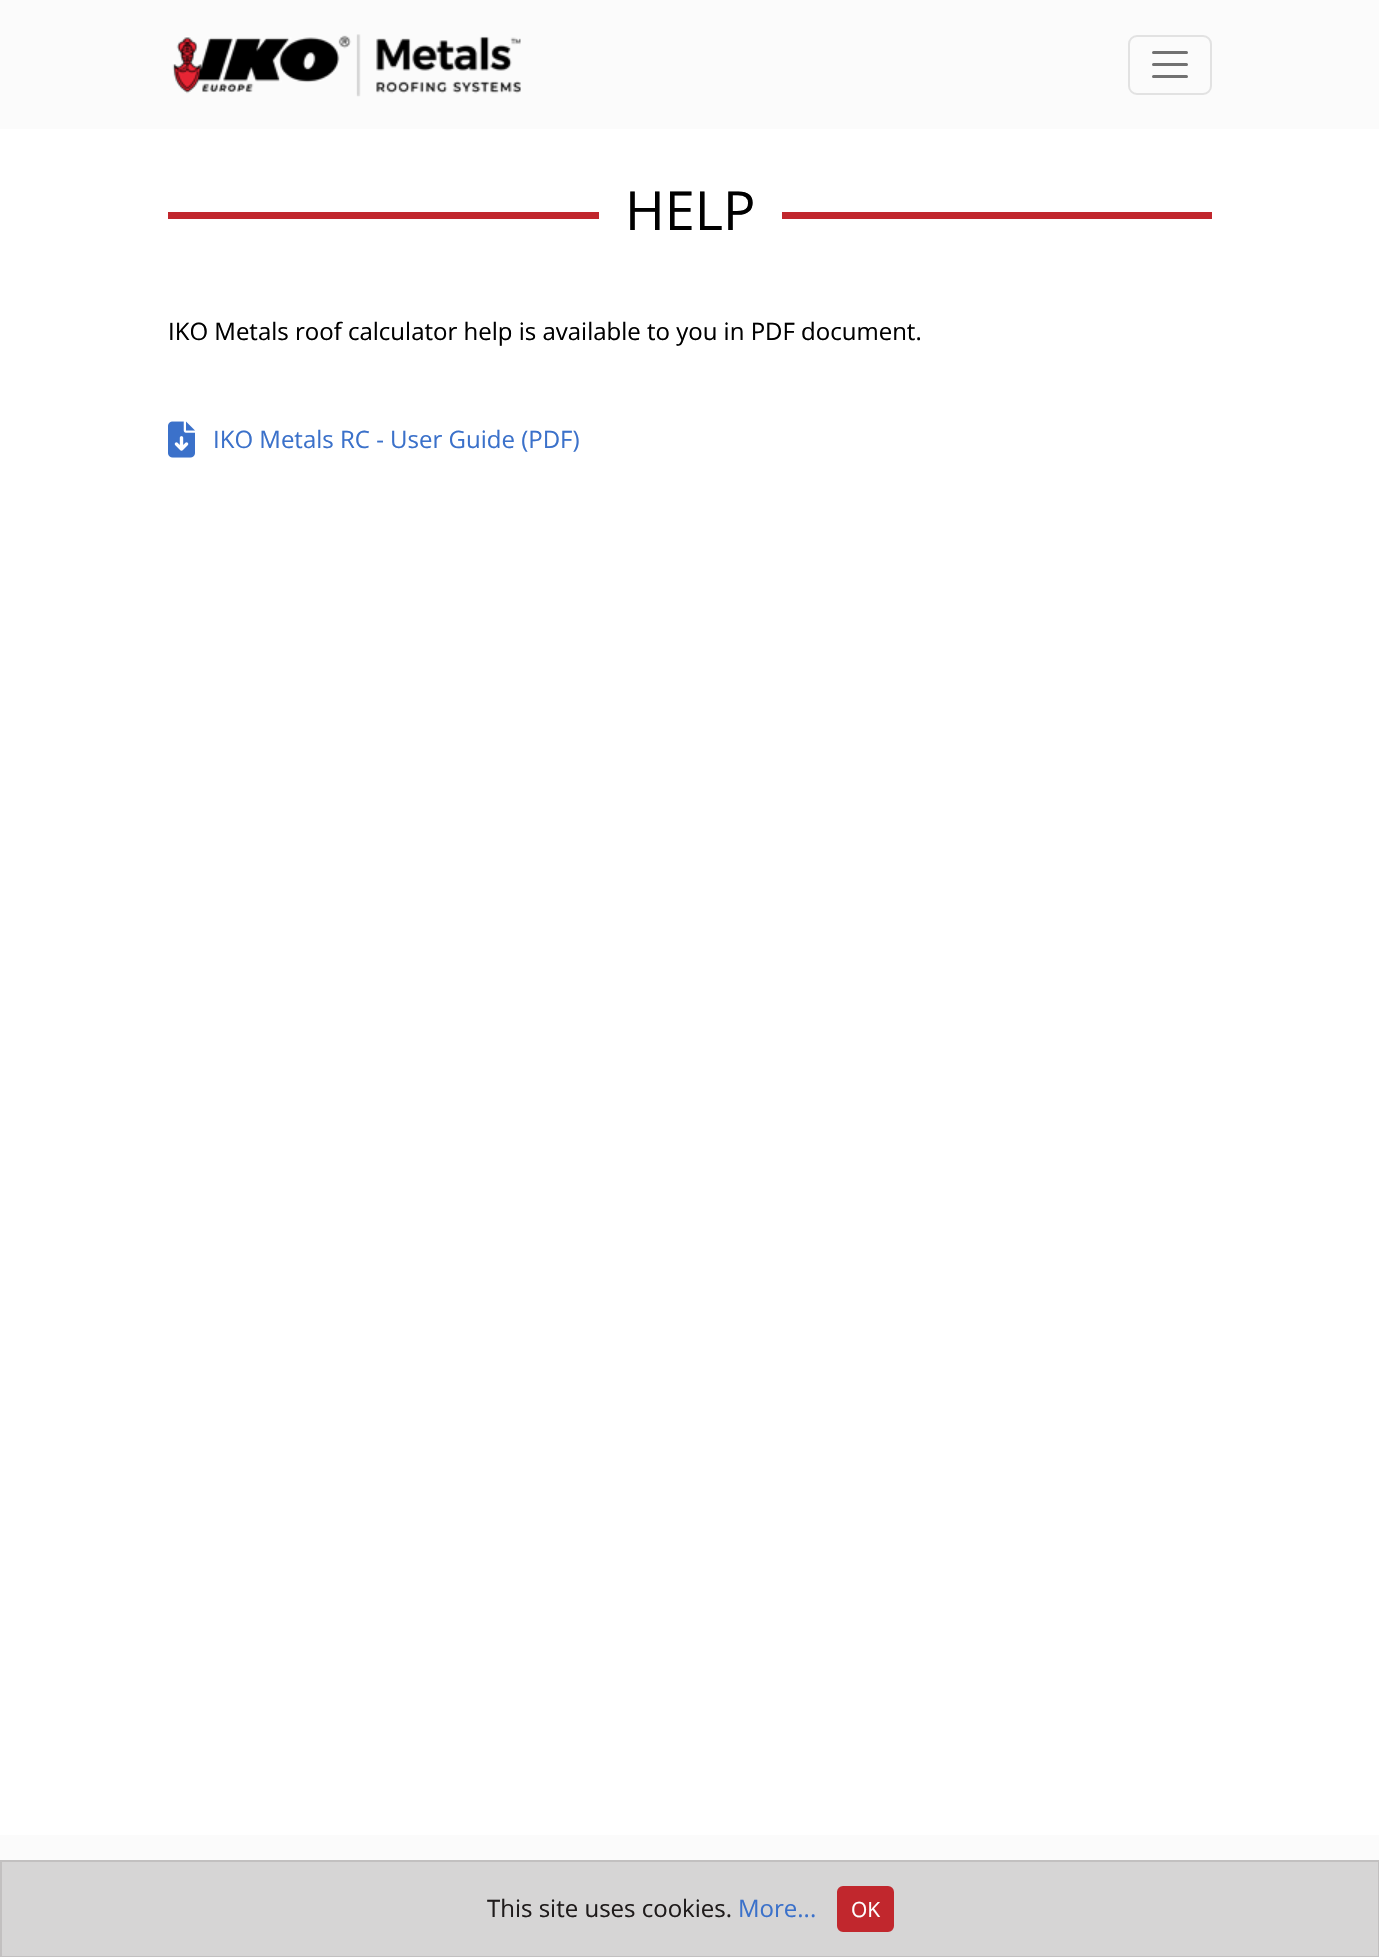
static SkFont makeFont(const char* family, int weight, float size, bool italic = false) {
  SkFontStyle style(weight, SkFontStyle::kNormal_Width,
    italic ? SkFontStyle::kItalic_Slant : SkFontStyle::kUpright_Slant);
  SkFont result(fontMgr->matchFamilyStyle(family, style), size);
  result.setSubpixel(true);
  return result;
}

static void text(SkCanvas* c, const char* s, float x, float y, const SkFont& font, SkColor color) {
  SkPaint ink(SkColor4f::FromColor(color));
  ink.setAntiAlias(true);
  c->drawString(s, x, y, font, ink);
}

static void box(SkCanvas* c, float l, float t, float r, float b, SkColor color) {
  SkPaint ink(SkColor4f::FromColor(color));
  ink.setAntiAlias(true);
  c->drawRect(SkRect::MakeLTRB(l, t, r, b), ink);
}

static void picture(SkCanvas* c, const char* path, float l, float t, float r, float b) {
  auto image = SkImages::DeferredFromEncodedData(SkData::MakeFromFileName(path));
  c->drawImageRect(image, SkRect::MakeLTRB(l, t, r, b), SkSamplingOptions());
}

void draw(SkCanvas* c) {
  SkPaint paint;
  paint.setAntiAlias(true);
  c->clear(0xffffffff);
  box(c, 0, 0, 1379, 129, 0xfffbfbfb);
  picture(c, "img_01.png", 172, 34, 521, 97);
  paint.setStyle(SkPaint::kStroke_Style);
  paint.setStrokeWidth(2);
  paint.setColor(0xffe2e2e2);
  c->drawRoundRect(SkRect::MakeLTRB(1129, 36, 1211, 94), 8, 8, paint);
  paint.setStrokeWidth(3);
  paint.setStrokeCap(SkPaint::kRound_Cap);
  paint.setColor(0xff717171);
  c->drawPath(SkPathBuilder().moveTo(1153.5f, 52.5f).lineTo(1186.5f, 52.5f).moveTo(1153.5f, 64.5f).lineTo(1186.5f, 64.5f).moveTo(1153.5f, 76.5f).lineTo(1186.5f, 76.5f).detach(), paint);
  box(c, 168, 212, 599, 219, 0xffc1272d);
  SkFont face1 = makeFont("Open Sans", 400, 54);
  text(c, "HELP", 625, 230, face1, 0xff000000);
  box(c, 782, 212, 1212, 219, 0xffc1272d);
  SkFont face2 = makeFont("Open Sans", 400, 24);
  text(c, "IKO Metals roof calculator help is available to you in PDF document.", 168, 340, face2, 0xff000000);
  picture(c, "img_02.png", 168, 421, 195, 458);
  text(c, "IKO Metals RC - User Guide (PDF)", 213, 448, face2, 0xff3b71ca);
  box(c, 0, 1835, 1379, 1860, 0xfffbfbfb);
  paint.setStyle(SkPaint::kFill_Style);
  paint.setColor(0xffd6d5d5);
  c->drawRect(SkRect::MakeLTRB(1, 1861, 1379, 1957), paint);
  paint.setStyle(SkPaint::kStroke_Style);
  paint.setStrokeWidth(2);
  paint.setStrokeCap(SkPaint::kButt_Cap);
  paint.setColor(0xffc2c0c0);
  c->drawRect(SkRect::MakeLTRB(1, 1861, 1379, 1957), paint);
  text(c, "This site uses cookies.", 487, 1917, face2, 0xff1f1b1b);
  text(c, "More...", 738, 1917, face2, 0xff3b71ca);
  paint.setStyle(SkPaint::kFill_Style);
  paint.setColor(0xffc1272d);
  c->drawRoundRect(SkRect::MakeLTRB(838, 1887, 893, 1931), 5, 5, paint);
  paint.setStyle(SkPaint::kStroke_Style);
  c->drawRoundRect(SkRect::MakeLTRB(838, 1887, 893, 1931), 5, 5, paint);
  SkFont face3 = makeFont("Open Sans", 400, 21);
  text(c, "OK", 851, 1917, face3, 0xffffffff);
}
